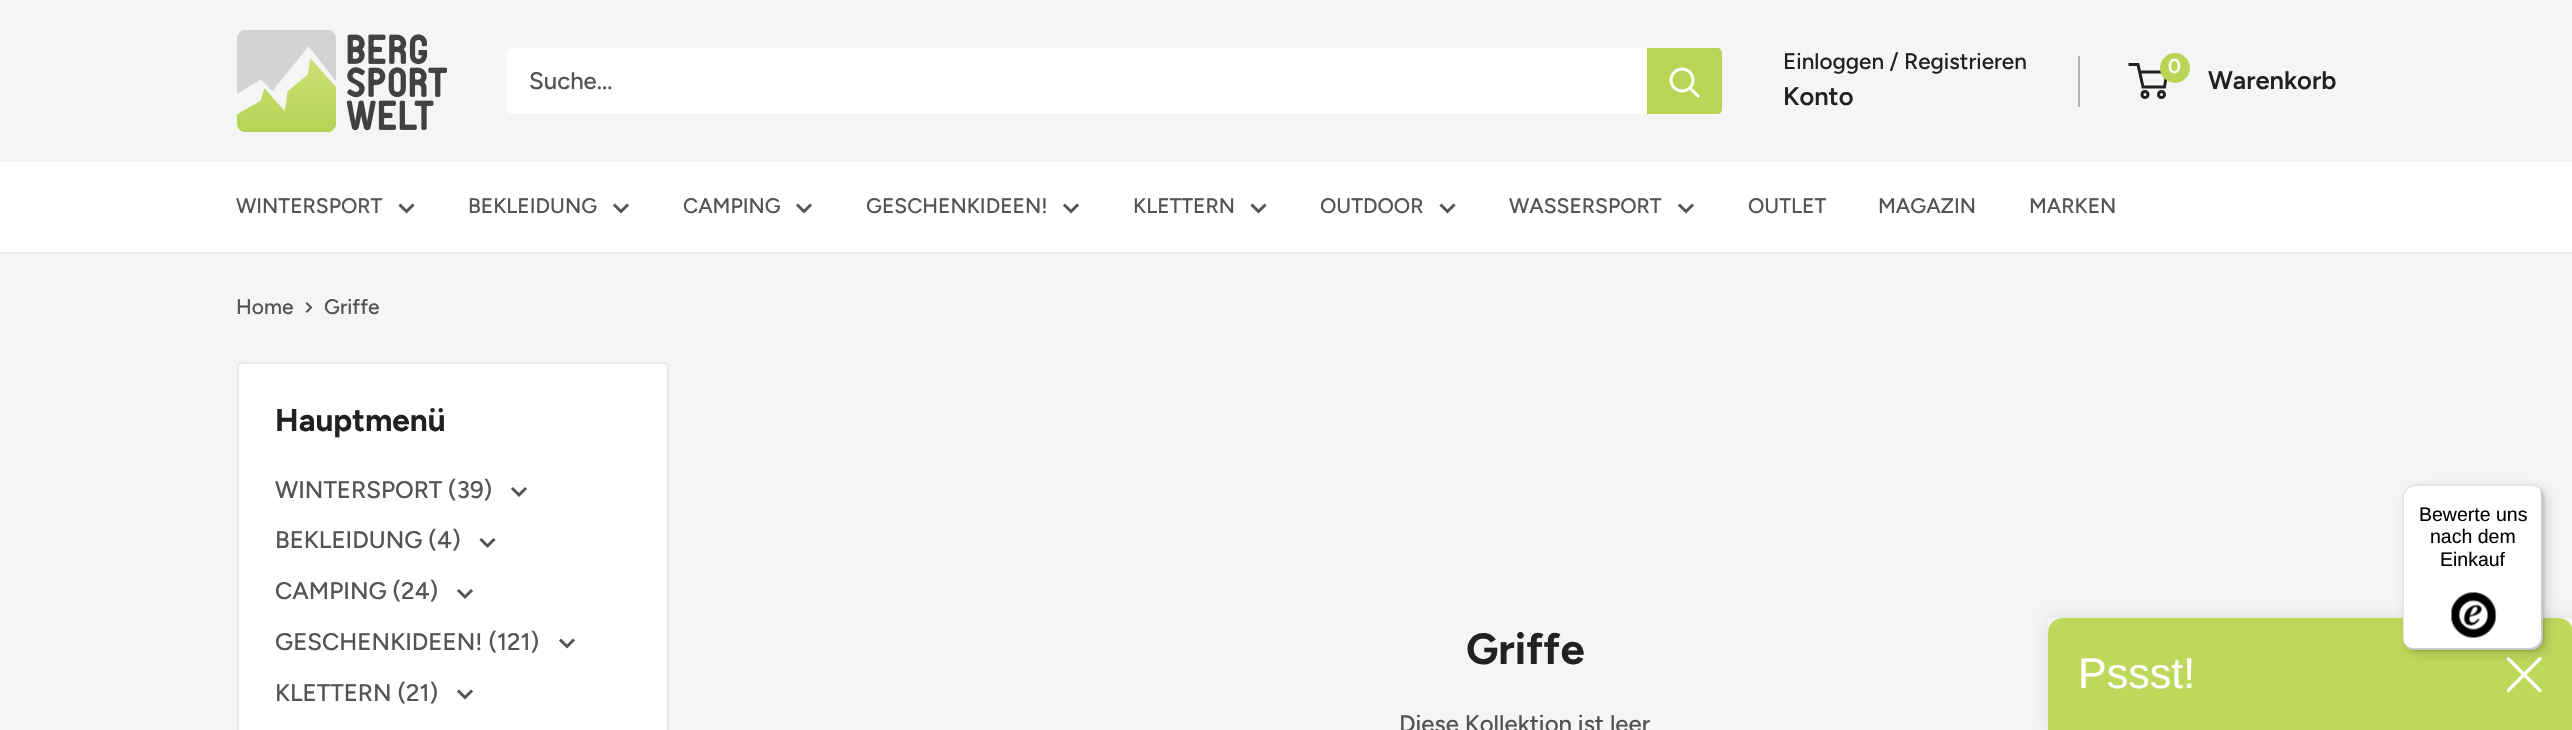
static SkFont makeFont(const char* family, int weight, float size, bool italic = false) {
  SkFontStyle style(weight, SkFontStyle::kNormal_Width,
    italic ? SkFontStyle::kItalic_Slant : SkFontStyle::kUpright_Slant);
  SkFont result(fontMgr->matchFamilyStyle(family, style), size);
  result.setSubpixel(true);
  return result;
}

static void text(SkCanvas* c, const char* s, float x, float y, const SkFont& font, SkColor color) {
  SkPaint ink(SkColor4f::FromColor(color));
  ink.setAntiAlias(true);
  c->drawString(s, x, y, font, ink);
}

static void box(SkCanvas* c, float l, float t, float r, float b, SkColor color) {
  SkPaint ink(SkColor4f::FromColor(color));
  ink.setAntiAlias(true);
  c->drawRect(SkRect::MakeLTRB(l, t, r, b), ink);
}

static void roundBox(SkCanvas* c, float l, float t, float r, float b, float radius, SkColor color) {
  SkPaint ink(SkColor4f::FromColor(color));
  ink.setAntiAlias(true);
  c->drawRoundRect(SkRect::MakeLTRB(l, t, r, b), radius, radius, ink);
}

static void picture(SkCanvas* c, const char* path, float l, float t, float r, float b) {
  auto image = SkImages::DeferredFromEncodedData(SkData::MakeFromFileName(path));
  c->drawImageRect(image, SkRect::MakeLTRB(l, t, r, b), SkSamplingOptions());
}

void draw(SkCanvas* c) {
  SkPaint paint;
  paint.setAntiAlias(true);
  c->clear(0xfff5f5f5);
  picture(c, "img_01.png", 237, 30, 447, 132);
  roundBox(c, 507, 48, 1722, 114, 5, 0xffffffff);
  SkFont face1 = makeFont("Figtree", 500, 24);
  text(c, "Suche...", 529, 89, face1, 0xff545454);
  paint.setColor(0xffb9d555);
  c->drawPath(SkPathBuilder().moveTo(1647, 48).lineTo(1717, 48).cubicTo(1720, 48, 1722, 50, 1722, 53).lineTo(1722, 109).cubicTo(1722, 112, 1720, 114, 1717, 114).lineTo(1647, 114).close().detach(), paint);
  paint.setStyle(SkPaint::kStroke_Style);
  paint.setStrokeWidth(3);
  paint.setStrokeCap(SkPaint::kSquare_Cap);
  paint.setColor(0xffffffff);
  c->drawPath(SkPathBuilder().moveTo(1698, 96).lineTo(1690.5f, 88.5f).detach(), paint);
  paint.setStrokeCap(SkPaint::kButt_Cap);
  c->drawCircle(1682, 80, 11, paint);
  SkFont face2 = makeFont("Figtree", 500, 22.5f);
  text(c, "Einloggen / Registrieren", 1783, 69, face2, 0xff222021);
  box(c, 2078, 56, 2080, 107, 0xffb6b5b5);
  SkFont face3 = makeFont("Figtree", 600, 25.5f);
  text(c, "Konto", 1783, 105, face3, 0xff222021);
  paint.setColor(0xff222021);
  c->drawCircle(2145, 94.5f, 3, paint);
  c->drawCircle(2161.5f, 94.5f, 3, paint);
  c->drawPath(SkPathBuilder().moveTo(2139.5f, 72).lineTo(2167, 72).lineTo(2164.5f, 87).lineTo(2143, 87).lineTo(2138, 64.5f).lineTo(2128.5f, 64.5f).detach(), paint);
  paint.setStyle(SkPaint::kFill_Style);
  paint.setColor(0xffb9d555);
  c->drawCircle(2175, 68, 15, paint);
  SkFont face4 = makeFont("Figtree", 600, 20);
  text(c, "0", 2168, 73, face4, 0xffffffff);
  text(c, "Warenkorb", 2208, 89, face3, 0xff222021);
  box(c, 0, 162, 2572, 252, 0xffffffff);
  box(c, 0, 252, 2572, 254, 0xffe8e8e8);
  SkFont face5 = makeFont("Figtree", 500, 21);
  text(c, "WINTERSPORT", 236, 213, face5, 0xff545454);
  paint.setStyle(SkPaint::kStroke_Style);
  paint.setStrokeCap(SkPaint::kSquare_Cap);
  paint.setColor(0xff545454);
  c->drawPath(SkPathBuilder().moveTo(412.5f, 205.5f).lineTo(406.5f, 211.5f).lineTo(400.5f, 205.5f).detach(), paint);
  text(c, "BEKLEIDUNG", 468, 213, face5, 0xff545454);
  c->drawPath(SkPathBuilder().moveTo(627, 205.5f).lineTo(621, 211.5f).lineTo(615, 205.5f).detach(), paint);
  text(c, "CAMPING", 683, 213, face5, 0xff545454);
  c->drawPath(SkPathBuilder().moveTo(810, 205.5f).lineTo(804, 211.5f).lineTo(798, 205.5f).detach(), paint);
  text(c, "GESCHENKIDEEN!", 866, 213, face5, 0xff545454);
  c->drawPath(SkPathBuilder().moveTo(1077, 205.5f).lineTo(1071, 211.5f).lineTo(1065, 205.5f).detach(), paint);
  text(c, "KLETTERN", 1133, 213, face5, 0xff545454);
  c->drawPath(SkPathBuilder().moveTo(1264.5f, 205.5f).lineTo(1258.5f, 211.5f).lineTo(1252.5f, 205.5f).detach(), paint);
  text(c, "OUTDOOR", 1320, 213, face5, 0xff545454);
  c->drawPath(SkPathBuilder().moveTo(1453.5f, 205.5f).lineTo(1447.5f, 211.5f).lineTo(1441.5f, 205.5f).detach(), paint);
  text(c, "WASSERSPORT", 1509, 213, face5, 0xff545454);
  c->drawPath(SkPathBuilder().moveTo(1692, 205.5f).lineTo(1686, 211.5f).lineTo(1680, 205.5f).detach(), paint);
  text(c, "OUTLET", 1748, 213, face5, 0xff545454);
  text(c, "MAGAZIN", 1878, 213, face5, 0xff545454);
  text(c, "MARKEN", 2029, 213, face5, 0xff545454);
  text(c, "Home", 236, 314, face5, 0xff545454);
  paint.setStrokeWidth(2);
  c->drawPath(SkPathBuilder().moveTo(307, 303.5f).lineTo(311, 307.5f).lineTo(307, 311.5f).detach(), paint);
  text(c, "Griffe", 324, 314, face5, 0xff545454);
  paint.setStyle(SkPaint::kFill_Style);
  paint.setColor(0xffffffff);
  c->drawRoundRect(SkRect::MakeLTRB(238, 363, 668, 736), 4, 4, paint);
  paint.setStyle(SkPaint::kStroke_Style);
  paint.setStrokeCap(SkPaint::kButt_Cap);
  paint.setColor(0xffe8e8e8);
  c->drawRoundRect(SkRect::MakeLTRB(238, 363, 668, 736), 4, 4, paint);
  SkFont face6 = makeFont("Figtree", 700, 31.5f);
  text(c, "Hauptmenü", 275, 431, face6, 0xff222021);
  text(c, "WINTERSPORT (39)", 275, 498, face1, 0xff545454);
  paint.setStrokeWidth(3);
  paint.setStrokeCap(SkPaint::kSquare_Cap);
  paint.setColor(0xff545454);
  c->drawPath(SkPathBuilder().moveTo(525, 489).lineTo(519, 495).lineTo(513, 489).moveTo(493.5f, 540).lineTo(487.5f, 546).lineTo(481.5f, 540).detach(), paint);
  text(c, "BEKLEIDUNG (4)", 275, 548, face1, 0xff545454);
  text(c, "CAMPING (24)", 275, 599, face1, 0xff545454);
  c->drawPath(SkPathBuilder().moveTo(471, 591).lineTo(465, 597).lineTo(459, 591).detach(), paint);
  text(c, "GESCHENKIDEEN! (121)", 275, 650, face1, 0xff545454);
  c->drawPath(SkPathBuilder().moveTo(573, 640.5f).lineTo(567, 646.5f).lineTo(561, 640.5f).detach(), paint);
  text(c, "KLETTERN (21)", 275, 701, face1, 0xff545454);
  c->drawPath(SkPathBuilder().moveTo(471, 691.5f).lineTo(465, 697.5f).lineTo(459, 691.5f).detach(), paint);
  SkFont face7 = makeFont("Figtree", 700, 43.5f);
  text(c, "Griffe", 1466, 664, face7, 0xff222021);
  text(c, "Diese Kollektion ist leer", 1399, 732, face1, 0xff545454);
  c->save();
  c->clipPath(SkPathBuilder(SkPathFillType::kEvenOdd).moveTo(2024, 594).lineTo(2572, 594).lineTo(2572, 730).lineTo(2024, 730).close().moveTo(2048, 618).lineTo(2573, 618).lineTo(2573, 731).lineTo(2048, 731).close().detach(), true);
  paint.setStyle(SkPaint::kFill_Style);
  paint.setColor(0x1a000000);
  paint.setMaskFilter(SkMaskFilter::MakeBlur(kNormal_SkBlurStyle, 7.5f));
  c->drawRect(SkRect::MakeLTRB(2048, 618, 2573, 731), paint);
  paint.setMaskFilter(nullptr);
  c->restore();
  paint.setColor(0xffbfd85b);
  c->drawPath(SkPathBuilder().moveTo(2063, 618).lineTo(2558, 618).cubicTo(2566.5f, 618, 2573, 624.5f, 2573, 633).lineTo(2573, 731).lineTo(2048, 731).lineTo(2048, 633).cubicTo(2048, 624.5f, 2054.5f, 618, 2063, 618).close().detach(), paint);
  picture(c, "img_03.png", 2507, 657, 2542, 693);
  paint.setColor(0x26000000);
  paint.setMaskFilter(SkMaskFilter::MakeBlur(kNormal_SkBlurStyle, 6));
  c->drawRoundRect(SkRect::MakeLTRB(2408, 489, 2547, 654), 12, 12, paint);
  paint.setMaskFilter(nullptr);
  paint.setMaskFilter(SkMaskFilter::MakeBlur(kNormal_SkBlurStyle, 1.5f));
  c->drawRoundRect(SkRect::MakeLTRB(2405, 486, 2544, 651), 12, 12, paint);
  paint.setMaskFilter(nullptr);
  roundBox(c, 2403, 485, 2543, 650, 12, 0xffffffff);
  paint.setColor(0x1a000000);
  c->drawPath(SkPathBuilder().moveTo(2416, 486).lineTo(2532, 486).cubicTo(2535, 486, 2537, 487, 2539, 488).cubicTo(2537, 486, 2534, 485, 2531, 485).lineTo(2415, 485).cubicTo(2408, 485, 2403, 490, 2403, 497).lineTo(2403, 638).cubicTo(2403, 642, 2405, 645, 2407, 647).cubicTo(2405, 645, 2404, 642, 2404, 639).lineTo(2404, 498).cubicTo(2404, 491, 2410, 486, 2416, 486).close().detach(), paint);
  paint.setColor(0x33000000);
  c->drawPath(SkPathBuilder().moveTo(2404, 643).cubicTo(2406, 647, 2410, 650, 2415, 650).lineTo(2531, 650).cubicTo(2538, 650, 2543, 645, 2543, 638).lineTo(2543, 497).cubicTo(2543, 493, 2541, 490, 2539, 488).cubicTo(2540, 490, 2541, 492, 2541, 495).lineTo(2541, 636).cubicTo(2541, 643, 2536, 648, 2529, 648).lineTo(2414, 648).cubicTo(2410, 648, 2406, 646, 2404, 643).close().detach(), paint);
  paint.setColor(0x33323232);
  c->drawPath(SkPathBuilder().moveTo(2406, 646).cubicTo(2408, 648, 2411, 650, 2415, 650).lineTo(2531, 650).cubicTo(2538, 650, 2543, 645, 2543, 638).lineTo(2543, 497).cubicTo(2543, 493, 2541, 490, 2539, 488).cubicTo(2541, 490, 2542, 493, 2542, 496).lineTo(2542, 637).cubicTo(2542, 643, 2536, 649, 2530, 649).lineTo(2414, 649).cubicTo(2411, 649, 2408, 648, 2406, 646).close().detach(), paint);
  paint.setColor(0x4dffffff);
  c->drawPath(SkPathBuilder().moveTo(2405, 644).cubicTo(2407, 648, 2410, 650, 2415, 650).lineTo(2531, 650).cubicTo(2538, 650, 2543, 645, 2543, 638).lineTo(2543, 497).cubicTo(2543, 493, 2541, 490, 2539, 488).cubicTo(2541, 490, 2542, 493, 2542, 496).lineTo(2542, 637).cubicTo(2542, 643, 2536, 649, 2530, 649).lineTo(2414, 649).cubicTo(2410, 649, 2407, 647, 2405, 644).close().detach(), paint);
  SkFont face8 = makeFont("Liberation Sans", 400, 19.5f);
  text(c, "Bewerte uns", 2419, 521, face8, 0xff000000);
  text(c, "nach dem", 2430, 543, face8, 0xff000000);
  text(c, "Einkauf", 2440, 566, face8, 0xff000000);
  picture(c, "img_02.png", 2451, 592, 2497, 638);
  SkFont face9 = makeFont("Liberation Sans", 400, 43);
  text(c, "Pssst!", 2078, 688, face9, 0xffffffff);
}
